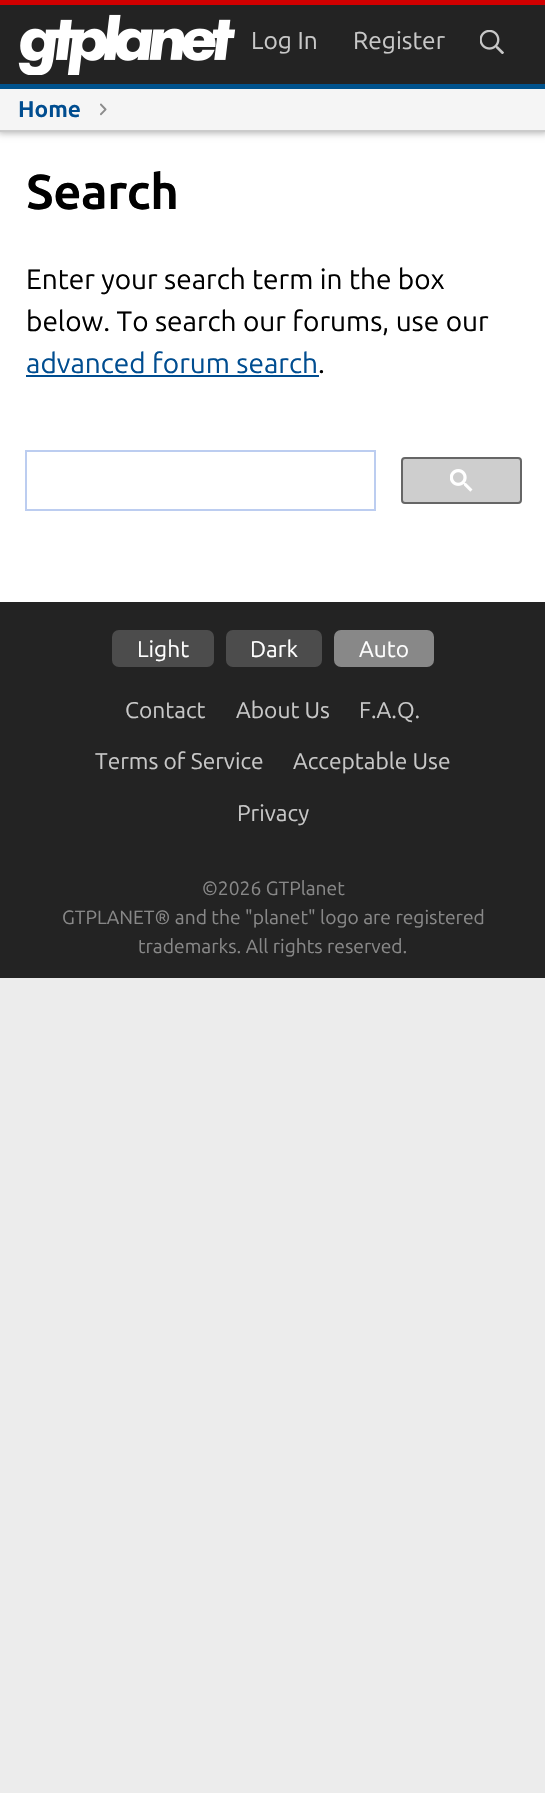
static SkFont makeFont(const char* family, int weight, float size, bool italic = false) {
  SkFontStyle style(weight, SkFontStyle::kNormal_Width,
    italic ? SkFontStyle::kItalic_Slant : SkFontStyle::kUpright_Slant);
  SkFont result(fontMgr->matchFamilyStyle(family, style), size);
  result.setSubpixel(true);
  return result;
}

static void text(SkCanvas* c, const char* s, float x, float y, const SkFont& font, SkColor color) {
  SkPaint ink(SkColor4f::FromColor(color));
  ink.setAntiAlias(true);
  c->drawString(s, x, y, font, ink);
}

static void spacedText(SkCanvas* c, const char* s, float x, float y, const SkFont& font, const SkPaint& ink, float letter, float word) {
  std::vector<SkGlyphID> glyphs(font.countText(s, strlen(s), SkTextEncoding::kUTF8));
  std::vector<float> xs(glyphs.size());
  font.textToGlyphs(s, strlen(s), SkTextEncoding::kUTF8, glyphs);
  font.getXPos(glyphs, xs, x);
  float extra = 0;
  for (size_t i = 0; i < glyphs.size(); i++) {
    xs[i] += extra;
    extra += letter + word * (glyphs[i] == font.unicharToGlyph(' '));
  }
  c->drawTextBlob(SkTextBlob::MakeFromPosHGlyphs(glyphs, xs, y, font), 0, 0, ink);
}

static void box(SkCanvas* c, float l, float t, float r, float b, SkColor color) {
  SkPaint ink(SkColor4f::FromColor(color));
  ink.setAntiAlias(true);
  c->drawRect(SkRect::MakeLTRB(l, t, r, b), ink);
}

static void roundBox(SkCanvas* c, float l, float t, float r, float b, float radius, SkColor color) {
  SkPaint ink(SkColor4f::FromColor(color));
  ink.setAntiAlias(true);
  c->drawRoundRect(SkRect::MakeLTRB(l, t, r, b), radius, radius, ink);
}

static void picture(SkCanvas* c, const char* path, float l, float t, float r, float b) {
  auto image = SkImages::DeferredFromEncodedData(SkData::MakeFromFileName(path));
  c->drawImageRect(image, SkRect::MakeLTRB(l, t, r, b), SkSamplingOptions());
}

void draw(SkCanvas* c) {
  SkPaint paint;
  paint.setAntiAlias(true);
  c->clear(0xffececec);
  box(c, 0, 132, 545, 602, 0xffffffff);
  paint.setColor(0x4d000000);
  paint.setMaskFilter(SkMaskFilter::MakeBlur(kNormal_SkBlurStyle, 3.5f));
  c->drawRect(SkRect::MakeLTRB(-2, -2, 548, 133), paint);
  paint.setMaskFilter(nullptr);
  box(c, 0, 5, 545, 84, 0xff232323);
  box(c, 0, 0, 545, 5, 0xffd00000);
  box(c, 0, 84, 545, 89, 0xff00528c);
  picture(c, "img_01.png", 18, 14, 236, 75);
  SkFont face1 = makeFont("Ubuntu", 400, 24.5f);
  text(c, "Log In", 251, 49, face1, 0xffc8c8c8);
  text(c, "Register", 353, 49, face1, 0xffc8c8c8);
  picture(c, "img_02.png", 480, 30, 504, 54);
  box(c, 0, 89, 545, 130, 0xfff5f5f5);
  box(c, 0, 130, 545, 132, 0xffcbcbcb);
  SkFont face2 = makeFont("Ubuntu", 700, 22.75f);
  text(c, "Home", 18, 117, face2, 0xff004d90);
  picture(c, "img_03.png", 100, 103, 107, 116);
  SkFont face3 = makeFont("Ubuntu", 700, 49);
  paint.setColor(0xff000000);
  spacedText(c, "Search", 26, 209, face3, paint, -0.5f, 0);
  SkFont face4 = makeFont("Ubuntu", 400, 28);
  text(c, "Enter your search term in the box", 26, 289, face4, 0xff000000);
  text(c, "below. To search our forums, use our", 26, 331, face4, 0xff000000);
  text(c, "advanced forum search", 26, 373, face4, 0xff004d90);
  box(c, 26, 375, 319, 377, 0xff004d90);
  text(c, ".", 318, 373, face4, 0xff000000);
  paint.setStyle(SkPaint::kStroke_Style);
  paint.setStrokeWidth(2);
  paint.setColor(0xffbccdf0);
  c->drawRect(SkRect::MakeLTRB(26, 451, 375, 510), paint);
  paint.setStyle(SkPaint::kFill_Style);
  paint.setColor(0xffcecece);
  c->drawRoundRect(SkRect::MakeLTRB(402, 458, 521, 503), 3, 3, paint);
  paint.setStyle(SkPaint::kStroke_Style);
  paint.setColor(0xff666666);
  c->drawRoundRect(SkRect::MakeLTRB(402, 458, 521, 503), 3, 3, paint);
  picture(c, "img_04.png", 450, 469, 473, 492);
  box(c, 0, 602, 545, 978, 0xff232323);
  roundBox(c, 112, 630, 214, 667, 7, 0xff4c4c4c);
  SkFont face5 = makeFont("Ubuntu", 400, 22.75f);
  text(c, "Light", 137, 657, face5, 0xffffffff);
  roundBox(c, 226, 630, 322, 667, 7, 0xff4c4c4c);
  text(c, "Dark", 250, 657, face5, 0xffffffff);
  roundBox(c, 334, 630, 434, 667, 7, 0xff888888);
  text(c, "Auto", 359, 657, face5, 0xffffffff);
  text(c, "Contact", 125, 718, face5, 0xffc8c8c8);
  text(c, "About Us", 236, 718, face5, 0xffc8c8c8);
  text(c, "F.A.Q.", 359, 718, face5, 0xffc8c8c8);
  text(c, "Terms of Service", 95, 769, face5, 0xffc8c8c8);
  text(c, "Acceptable Use", 293, 769, face5, 0xffc8c8c8);
  text(c, "Privacy", 237, 821, face5, 0xffc8c8c8);
  SkFont face6 = makeFont("Ubuntu", 400, 19.25f);
  text(c, "©2026 GTPlanet", 202, 895, face6, 0xff888888);
  text(c, "GTPLANET® and the \"planet\" logo are registered", 62, 924, face6, 0xff888888);
  text(c, "trademarks. All rights reserved.", 138, 953, face6, 0xff888888);
}
